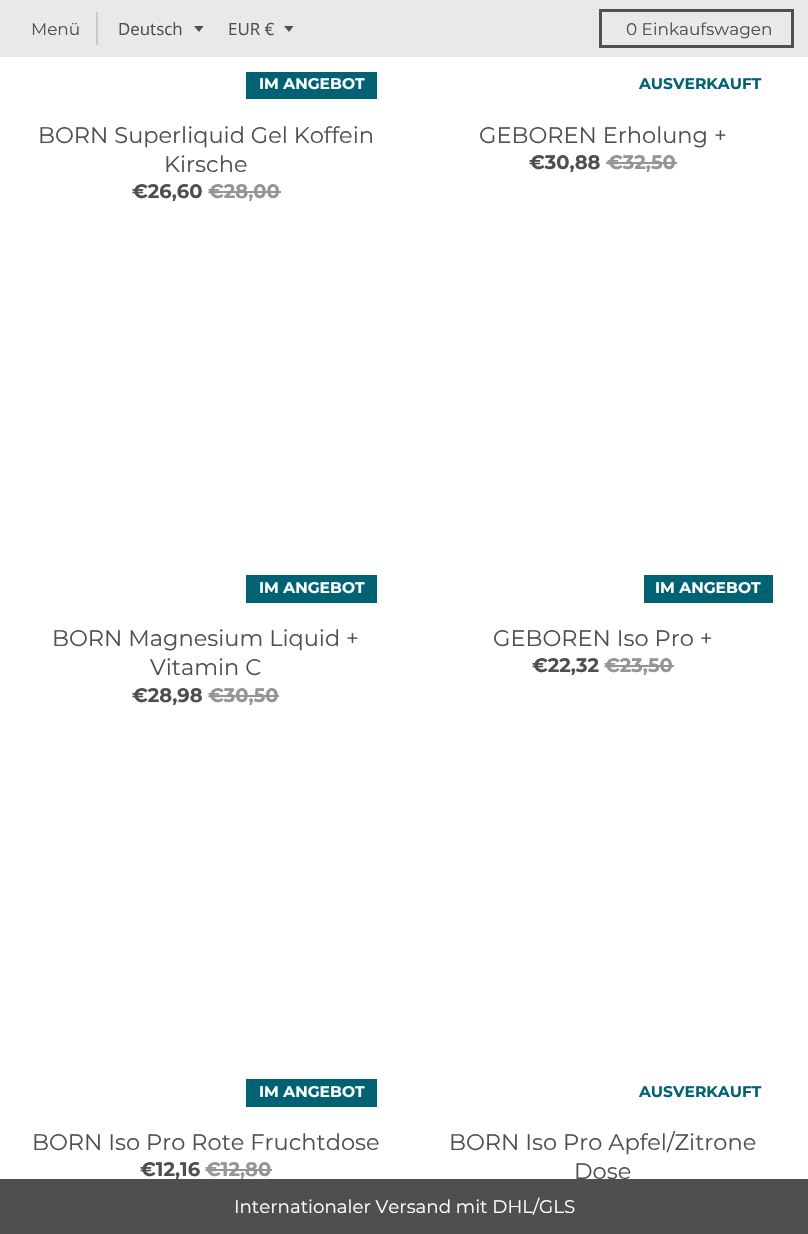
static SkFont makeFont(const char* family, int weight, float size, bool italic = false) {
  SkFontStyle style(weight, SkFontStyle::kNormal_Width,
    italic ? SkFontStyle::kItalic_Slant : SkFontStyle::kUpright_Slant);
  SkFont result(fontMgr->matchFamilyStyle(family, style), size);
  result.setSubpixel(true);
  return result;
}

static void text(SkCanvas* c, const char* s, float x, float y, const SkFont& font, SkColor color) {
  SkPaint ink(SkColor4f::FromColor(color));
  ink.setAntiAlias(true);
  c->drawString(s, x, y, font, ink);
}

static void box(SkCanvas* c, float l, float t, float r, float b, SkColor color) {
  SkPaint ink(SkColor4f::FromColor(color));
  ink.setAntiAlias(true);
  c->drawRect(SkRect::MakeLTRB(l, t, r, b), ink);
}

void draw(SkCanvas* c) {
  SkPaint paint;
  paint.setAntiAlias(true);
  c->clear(0xffffffff);
  box(c, 0, 0, 808, 57, 0xffe9e9e9);
  SkFont face1 = makeFont("Montserrat", 400, 16.9f);
  text(c, "Menü", 31, 35, face1, 0xff4f4f4f);
  box(c, 96, 12, 98, 45, 0xffcacaca);
  c->save();
  c->clipRect(SkRect::MakeLTRB(194, 26, 206, 33));
  paint.setColor(0xff505050);
  c->drawPath(SkPathBuilder().moveTo(193.5f, 25.5f).lineTo(199, 32).lineTo(204, 25.5f).close().detach(), paint);
  c->restore();
  SkFont face2 = makeFont("Open Sans", 400, 16.9f);
  text(c, "Deutsch", 118, 35, face2, 0xff4f4f4f);
  c->save();
  c->clipRect(SkRect::MakeLTRB(284, 26, 296, 33));
  c->drawPath(SkPathBuilder().moveTo(283.5f, 25.5f).lineTo(289, 32).lineTo(294, 25.5f).close().detach(), paint);
  c->restore();
  text(c, "EUR €", 228, 35, face2, 0xff4f4f4f);
  paint.setStyle(SkPaint::kStroke_Style);
  paint.setStrokeWidth(3);
  c->drawRect(SkRect::MakeLTRB(600.5f, 10.5f, 792.5f, 46.5f), paint);
  text(c, "0 Einkaufswagen", 626, 35, face1, 0xff4f4f4f);
  box(c, 246, 72, 377, 99, 0xff016273);
  SkFont face3 = makeFont("Montserrat", 700, 15.5f);
  text(c, "IM ANGEBOT", 259, 89, face3, 0xffffffff);
  SkFont face4 = makeFont("Montserrat", 400, 22.5f);
  text(c, "BORN Superliquid Gel Koffein", 38, 143, face4, 0xff4f4f4f);
  text(c, "Kirsche", 164, 172, face4, 0xff4f4f4f);
  SkFont face5 = makeFont("Montserrat", 700, 19.5f);
  text(c, "€26,60", 132, 198, face5, 0xff4f4f4f);
  text(c, "€28,00", 208, 198, face5, 0xff959595);
  box(c, 209, 191, 281, 193, 0xff959595);
  text(c, "AUSVERKAUFT", 639, 89, face3, 0xff016273);
  text(c, "GEBOREN Erholung +", 479, 143, face4, 0xff4f4f4f);
  text(c, "€30,88", 529, 169, face5, 0xff4f4f4f);
  text(c, "€32,50", 607, 169, face5, 0xff959595);
  box(c, 606, 162, 677, 164, 0xff959595);
  box(c, 246, 575, 377, 603, 0xff016273);
  text(c, "IM ANGEBOT", 259, 593, face3, 0xffffffff);
  text(c, "BORN Magnesium Liquid +", 52, 646, face4, 0xff4f4f4f);
  text(c, "Vitamin C", 150, 675, face4, 0xff4f4f4f);
  text(c, "€28,98", 132, 702, face5, 0xff4f4f4f);
  text(c, "€30,50", 208, 702, face5, 0xff959595);
  box(c, 209, 695, 279, 697, 0xff959595);
  box(c, 644, 575, 773, 603, 0xff016273);
  text(c, "IM ANGEBOT", 655, 593, face3, 0xffffffff);
  text(c, "GEBOREN Iso Pro +", 493, 646, face4, 0xff4f4f4f);
  text(c, "€22,32", 532, 672, face5, 0xff4f4f4f);
  text(c, "€23,50", 604, 672, face5, 0xff959595);
  box(c, 605, 665, 674, 667, 0xff959595);
  box(c, 246, 1079, 377, 1107, 0xff016273);
  text(c, "IM ANGEBOT", 259, 1097, face3, 0xffffffff);
  text(c, "BORN Iso Pro Rote Fruchtdose", 32, 1150, face4, 0xff4f4f4f);
  text(c, "€12,16", 140, 1176, face5, 0xff4f4f4f);
  text(c, "€12,80", 205, 1176, face5, 0xff959595);
  box(c, 206, 1169, 272, 1171, 0xff959595);
  text(c, "AUSVERKAUFT", 639, 1097, face3, 0xff016273);
  text(c, "BORN Iso Pro Apfel/Zitrone", 449, 1150, face4, 0xff4f4f4f);
  text(c, "Dose", 574, 1179, face4, 0xff4f4f4f);
  box(c, 0, 1179, 808, 1234, 0xff4f4f4f);
  SkFont face6 = makeFont("Montserrat", 400, 18.25f);
  text(c, "Internationaler Versand mit DHL/GLS", 234, 1213, face6, 0xffffffff);
}
